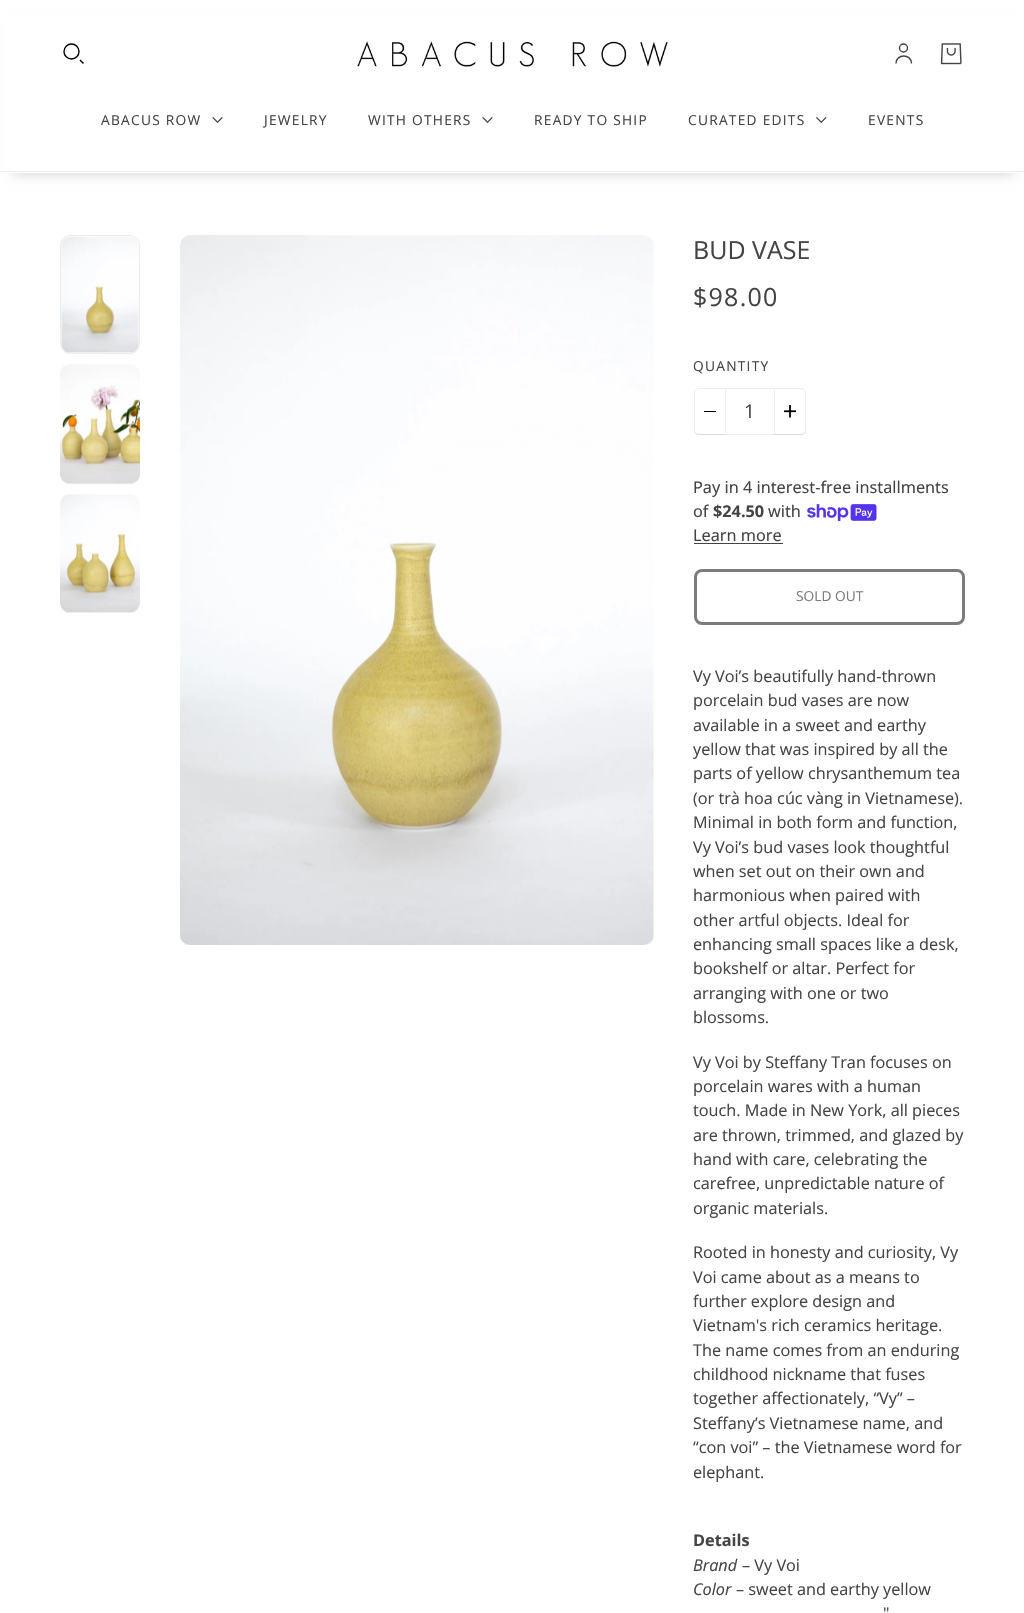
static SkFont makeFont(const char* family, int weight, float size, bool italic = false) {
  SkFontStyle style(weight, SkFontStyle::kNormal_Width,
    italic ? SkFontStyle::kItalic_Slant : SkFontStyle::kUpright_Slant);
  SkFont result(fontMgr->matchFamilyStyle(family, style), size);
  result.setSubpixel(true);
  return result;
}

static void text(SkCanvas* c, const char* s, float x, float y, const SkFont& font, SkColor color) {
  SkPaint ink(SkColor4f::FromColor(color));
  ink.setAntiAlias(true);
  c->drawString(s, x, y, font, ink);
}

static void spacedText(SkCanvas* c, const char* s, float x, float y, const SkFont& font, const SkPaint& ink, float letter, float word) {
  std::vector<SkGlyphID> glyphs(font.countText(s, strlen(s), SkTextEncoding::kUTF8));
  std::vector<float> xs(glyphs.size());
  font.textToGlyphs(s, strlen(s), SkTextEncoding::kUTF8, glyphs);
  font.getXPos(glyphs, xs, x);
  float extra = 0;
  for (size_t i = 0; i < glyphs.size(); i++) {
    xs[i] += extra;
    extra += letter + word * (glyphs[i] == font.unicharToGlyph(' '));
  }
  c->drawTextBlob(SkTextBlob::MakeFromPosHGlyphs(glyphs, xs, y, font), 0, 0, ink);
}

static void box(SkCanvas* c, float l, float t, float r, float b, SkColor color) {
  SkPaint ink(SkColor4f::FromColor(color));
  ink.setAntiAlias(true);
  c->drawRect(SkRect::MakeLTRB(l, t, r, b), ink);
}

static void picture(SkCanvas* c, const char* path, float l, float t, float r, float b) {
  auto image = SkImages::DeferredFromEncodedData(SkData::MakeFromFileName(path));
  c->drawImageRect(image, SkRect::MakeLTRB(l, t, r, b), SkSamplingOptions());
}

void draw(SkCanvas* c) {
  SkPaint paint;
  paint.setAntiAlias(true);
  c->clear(0xffffffff);
  paint.setColor(0x33000000);
  paint.setMaskFilter(SkMaskFilter::MakeBlur(kNormal_SkBlurStyle, 6));
  c->drawRect(SkRect::MakeLTRB(13, 25, 1013, 173), paint);
  paint.setMaskFilter(nullptr);
  box(c, 3, 15, 1023, 173, 0xffffffff);
  paint.setStyle(SkPaint::kStroke_Style);
  paint.setStrokeWidth(1.4f);
  paint.setColor(0xff000000);
  c->drawCircle(71.5f, 51.5f, 7.5f, paint);
  c->drawPath(SkPathBuilder().moveTo(80, 60).lineTo(83.5f, 63.5f).detach(), paint);
  picture(c, "img_01.png", 357, 41, 668, 67);
  paint.setColor(0xff444444);
  c->drawCircle(903.5f, 48, 4, paint);
  c->drawPath(SkPathBuilder().moveTo(896, 63.5f).cubicTo(896, 53.5f, 911.5f, 53.5f, 911.5f, 63.5f).detach(), paint);
  picture(c, "img_02.png", 940, 43, 962, 65);
  SkFont face1 = makeFont("Open Sans", 400, 13.75f);
  paint.setStyle(SkPaint::kFill_Style);
  spacedText(c, "ABACUS ROW", 101, 125, face1, paint, 1.25f, 0);
  picture(c, "img_03.png", 212, 117, 223, 123);
  spacedText(c, "JEWELRY", 264, 125, face1, paint, 1.25f, 0);
  spacedText(c, "WITH OTHERS", 368, 125, face1, paint, 1.25f, 0);
  picture(c, "img_03.png", 482, 117, 493, 123);
  spacedText(c, "READY TO SHIP", 534, 125, face1, paint, 1.25f, 0);
  spacedText(c, "CURATED EDITS", 688, 125, face1, paint, 1.25f, 0);
  picture(c, "img_04.png", 816, 117, 827, 123);
  spacedText(c, "EVENTS", 868, 125, face1, paint, 1.25f, 0);
  box(c, 0, 171, 1024, 172, 0xffececec);
  paint.setStyle(SkPaint::kStroke_Style);
  paint.setStrokeWidth(1);
  paint.setColor(0xffececec);
  c->drawRoundRect(SkRect::MakeLTRB(60.5f, 235.5f, 139.5f, 353.5f), 9.5f, 9.5f, paint);
  picture(c, "img_05.png", 61, 236, 139, 353);
  picture(c, "img_06.png", 60, 364, 140, 485);
  picture(c, "img_07.png", 60, 494, 140, 613);
  picture(c, "img_08.png", 180, 235, 654, 945);
  SkFont face2 = makeFont("Open Sans", 400, 25);
  text(c, "BUD VASE", 693, 259, face2, 0xff444444);
  paint.setStyle(SkPaint::kFill_Style);
  paint.setColor(0xff444444);
  spacedText(c, "$98.00", 693, 306, face2, paint, 1.25f, 0);
  spacedText(c, "QUANTITY", 693, 371, face1, paint, 1.25f, 0);
  paint.setStyle(SkPaint::kStroke_Style);
  paint.setColor(0xffececec);
  c->drawPath(SkPathBuilder().moveTo(699, 388.5f).lineTo(725.5f, 388.5f).lineTo(725.5f, 434.5f).lineTo(699, 434.5f).cubicTo(696.5f, 434.5f, 694.5f, 432.5f, 694.5f, 430).lineTo(694.5f, 393).cubicTo(694.5f, 390.5f, 696.5f, 388.5f, 699, 388.5f).close().detach(), paint);
  paint.setStyle(SkPaint::kFill_Style);
  paint.setColor(0x1a444444);
  c->drawPath(SkPathBuilder().moveTo(694, 429).lineTo(694, 430).cubicTo(694, 433, 696, 435, 699, 435).lineTo(726, 435).lineTo(726, 434).lineTo(699, 434).cubicTo(696, 434, 694, 432, 694, 429).close().detach(), paint);
  box(c, 704, 411, 716, 412, 0xff000000);
  box(c, 726, 388, 774, 389, 0xffececec);
  box(c, 726, 434, 774, 435, 0xffececec);
  SkFont face3 = makeFont("Open Sans", 400, 19);
  text(c, "1", 744, 418, face3, 0xff444444);
  paint.setStyle(SkPaint::kStroke_Style);
  paint.setColor(0xffececec);
  c->drawPath(SkPathBuilder().moveTo(774.5f, 388.5f).lineTo(801, 388.5f).cubicTo(803.5f, 388.5f, 805.5f, 390.5f, 805.5f, 393).lineTo(805.5f, 430).cubicTo(805.5f, 432.5f, 803.5f, 434.5f, 801, 434.5f).lineTo(774.5f, 434.5f).close().detach(), paint);
  paint.setStyle(SkPaint::kFill_Style);
  paint.setColor(0x1a444444);
  c->drawPath(SkPathBuilder().moveTo(774, 434).lineTo(774, 435).lineTo(801, 435).cubicTo(804, 435, 806, 433, 806, 430).lineTo(806, 429).cubicTo(806, 432, 804, 434, 801, 434).close().detach(), paint);
  picture(c, "img_09.png", 784, 405, 796, 418);
  SkFont face4 = makeFont("Noto Sans", 400, 16.25f);
  text(c, "Pay in 4 interest-free installments", 693, 493, face4, 0xff444444);
  text(c, "of", 693, 517, face4, 0xff444444);
  SkFont face5 = makeFont("Noto Sans", 700, 16.25f);
  text(c, "$24.50", 713, 517, face5, 0xff444444);
  text(c, "with", 768, 517, face4, 0xff444444);
  picture(c, "img_10.png", 807, 504, 877, 521);
  text(c, "Learn more", 693, 541, face4, 0xff444444);
  box(c, 694, 543, 783, 544, 0xff444444);
  paint.setStyle(SkPaint::kStroke_Style);
  paint.setStrokeWidth(3);
  paint.setColor(0xff7c7c7c);
  c->drawRoundRect(SkRect::MakeLTRB(695.5f, 570.5f, 963.5f, 623.5f), 6.5f, 6.5f, paint);
  text(c, "SOLD OUT", 796, 601, face1, 0xff7c7c7c);
  SkFont face6 = makeFont("Open Sans", 400, 16.25f);
  text(c, "Vy Voi’s beautifully hand-thrown", 693, 682, face6, 0xff444444);
  text(c, "porcelain bud vases are now", 693, 706, face6, 0xff444444);
  text(c, "available in a sweet and earthy", 693, 731, face6, 0xff444444);
  text(c, "yellow that was inspired by all the", 693, 755, face6, 0xff444444);
  text(c, "parts of yellow chrysanthemum tea", 693, 779, face6, 0xff444444);
  text(c, "(or trà hoa cúc vàng in Vietnamese).", 693, 804, face6, 0xff444444);
  text(c, "Minimal in both form and function,", 693, 828, face6, 0xff444444);
  text(c, "Vy Voi’s bud vases look thoughtful", 693, 853, face6, 0xff444444);
  text(c, "when set out on their own and", 693, 877, face6, 0xff444444);
  text(c, "harmonious when paired with", 693, 901, face6, 0xff444444);
  text(c, "other artful objects. Ideal for", 693, 926, face6, 0xff444444);
  text(c, "enhancing small spaces like a desk,", 693, 950, face6, 0xff444444);
  text(c, "bookshelf or altar. Perfect for", 693, 974, face6, 0xff444444);
  text(c, "arranging with one or two", 693, 999, face6, 0xff444444);
  text(c, "blossoms.", 693, 1023, face6, 0xff444444);
  text(c, "Vy Voi by Steffany Tran focuses on", 693, 1068, face6, 0xff444444);
  text(c, "porcelain wares with a human", 693, 1092, face6, 0xff444444);
  text(c, "touch. Made in New York, all pieces", 693, 1116, face6, 0xff444444);
  text(c, "are thrown, trimmed, and glazed by", 693, 1141, face6, 0xff444444);
  text(c, "hand with care, celebrating the", 693, 1165, face6, 0xff444444);
  text(c, "carefree, unpredictable nature of", 693, 1189, face6, 0xff444444);
  text(c, "organic materials.", 693, 1214, face6, 0xff444444);
  text(c, "Rooted in honesty and curiosity, Vy", 693, 1258, face6, 0xff444444);
  text(c, "Voi came about as a means to", 693, 1283, face6, 0xff444444);
  text(c, "further explore design and", 693, 1307, face6, 0xff444444);
  text(c, "Vietnam's rich ceramics heritage.", 693, 1331, face6, 0xff444444);
  text(c, "The name comes from an enduring", 693, 1356, face6, 0xff444444);
  text(c, "childhood nickname that fuses", 693, 1380, face6, 0xff444444);
  text(c, "together affectionately, “Vy” –", 693, 1404, face6, 0xff444444);
  text(c, "Steffany’s Vietnamese name, and", 693, 1429, face6, 0xff444444);
  text(c, "“con voi” – the Vietnamese word for", 693, 1453, face6, 0xff444444);
  text(c, "elephant.", 693, 1478, face6, 0xff444444);
  SkFont face7 = makeFont("Open Sans", 700, 16.25f);
  text(c, "Details", 693, 1546, face7, 0xff444444);
  SkFont face8 = makeFont("Open Sans", 400, 16.25f, true);
  text(c, "Brand", 693, 1571, face8, 0xff444444);
  text(c, "– Vy Voi", 742, 1571, face6, 0xff444444);
  text(c, "Color", 693, 1595, face8, 0xff444444);
  text(c, "– sweet and earthy yellow", 736, 1595, face6, 0xff444444);
  text(c, "\"", 883, 1619, face6, 0xff444444);
}
